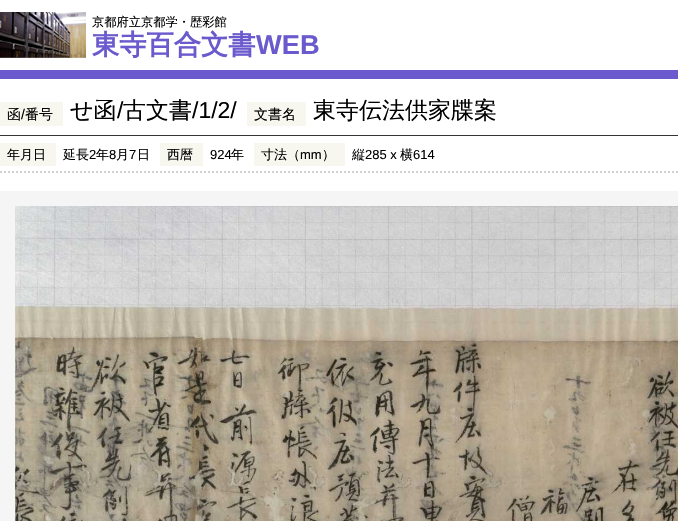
static SkFont makeFont(const char* family, int weight, float size, bool italic = false) {
  SkFontStyle style(weight, SkFontStyle::kNormal_Width,
    italic ? SkFontStyle::kItalic_Slant : SkFontStyle::kUpright_Slant);
  SkFont result(fontMgr->matchFamilyStyle(family, style), size);
  result.setSubpixel(true);
  return result;
}

static void text(SkCanvas* c, const char* s, float x, float y, const SkFont& font, SkColor color) {
  SkPaint ink(SkColor4f::FromColor(color));
  ink.setAntiAlias(true);
  c->drawString(s, x, y, font, ink);
}

static void box(SkCanvas* c, float l, float t, float r, float b, SkColor color) {
  SkPaint ink(SkColor4f::FromColor(color));
  ink.setAntiAlias(true);
  c->drawRect(SkRect::MakeLTRB(l, t, r, b), ink);
}

static void picture(SkCanvas* c, const char* path, float l, float t, float r, float b) {
  auto image = SkImages::DeferredFromEncodedData(SkData::MakeFromFileName(path));
  c->drawImageRect(image, SkRect::MakeLTRB(l, t, r, b), SkSamplingOptions());
}

void draw(SkCanvas* c) {
  SkPaint paint;
  paint.setAntiAlias(true);
  c->clear(0xffffffff);
  box(c, 0, 70, 678, 79, 0xff6a5acd);
  picture(c, "img_01.png", 0, 12, 86, 58);
  SkFont face1 = makeFont("WenQuanYi Zen Hei", 500, 12.25f);
  text(c, "京都府立京都学・歴彩館", 92, 26, face1, 0xff000000);
  SkFont face2 = makeFont("WenQuanYi Zen Hei", 700, 27.25f);
  text(c, "東寺百合文書", 92, 54, face2, 0xff6a5acd);
  SkFont face3 = makeFont("Liberation Sans", 700, 27.25f);
  text(c, "WEB", 256, 54, face3, 0xff6a5acd);
  paint.setStyle(SkPaint::kStroke_Style);
  paint.setStrokeWidth(2);
  paint.setColor(0xffd2d2d2);
  paint.setPathEffect(SkDashPathEffect::Make({{2, 2}}, 0));
  c->drawPath(SkPathBuilder().moveTo(0, 172).lineTo(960, 172).detach(), paint);
  paint.setPathEffect(nullptr);
  box(c, 0, 135, 678, 136, 0xff343434);
  box(c, 0, 102, 63, 126, 0xfff7f7ef);
  SkFont face4 = makeFont("WenQuanYi Zen Hei", 500, 14);
  text(c, "函", 7, 119, face4, 0xff000000);
  SkFont face5 = makeFont("Liberation Sans", 400, 14);
  text(c, "/", 21, 119, face5, 0xff000000);
  text(c, "番号", 25, 119, face4, 0xff000000);
  SkFont face6 = makeFont("WenQuanYi Zen Hei", 500, 23);
  text(c, "せ函", 70, 118, face6, 0xff000000);
  SkFont face7 = makeFont("Liberation Sans", 400, 23);
  text(c, "/", 117, 118, face7, 0xff000000);
  text(c, "古文書", 123, 118, face6, 0xff000000);
  text(c, "/1/2/", 192, 118, face7, 0xff000000);
  box(c, 247, 102, 306, 126, 0xfff7f7ef);
  text(c, "文書名", 254, 119, face4, 0xff000000);
  text(c, "東寺伝法供家牒案", 313, 118, face6, 0xff000000);
  box(c, 0, 143, 56, 166, 0xfff7f7ef);
  SkFont face8 = makeFont("WenQuanYi Zen Hei", 500, 13);
  text(c, "年月日", 7, 159, face8, 0xff000000);
  text(c, "延長", 63, 159, face8, 0xff000000);
  SkFont face9 = makeFont("Liberation Sans", 400, 13);
  text(c, "2", 89, 159, face9, 0xff000000);
  text(c, "年", 96, 159, face8, 0xff000000);
  text(c, "8", 109, 159, face9, 0xff000000);
  text(c, "月", 116, 159, face8, 0xff000000);
  text(c, "7", 129, 159, face9, 0xff000000);
  text(c, "日", 137, 159, face8, 0xff000000);
  box(c, 160, 143, 203, 166, 0xfff7f7ef);
  text(c, "西暦", 167, 159, face8, 0xff000000);
  text(c, "924", 210, 159, face9, 0xff000000);
  text(c, "年", 231, 159, face8, 0xff000000);
  box(c, 254, 143, 345, 166, 0xfff7f7ef);
  text(c, "寸法（", 261, 159, face8, 0xff000000);
  text(c, "mm", 300, 159, face9, 0xff000000);
  text(c, "）", 322, 159, face8, 0xff000000);
  text(c, "縦", 352, 159, face8, 0xff000000);
  text(c, "285 x", 365, 159, face9, 0xff000000);
  text(c, "横", 400, 159, face8, 0xff000000);
  text(c, "614", 413, 159, face9, 0xff000000);
  box(c, 0, 191, 678, 521, 0xfff5f5f5);
  picture(c, "img_02.png", 15, 206, 678, 521);
}
